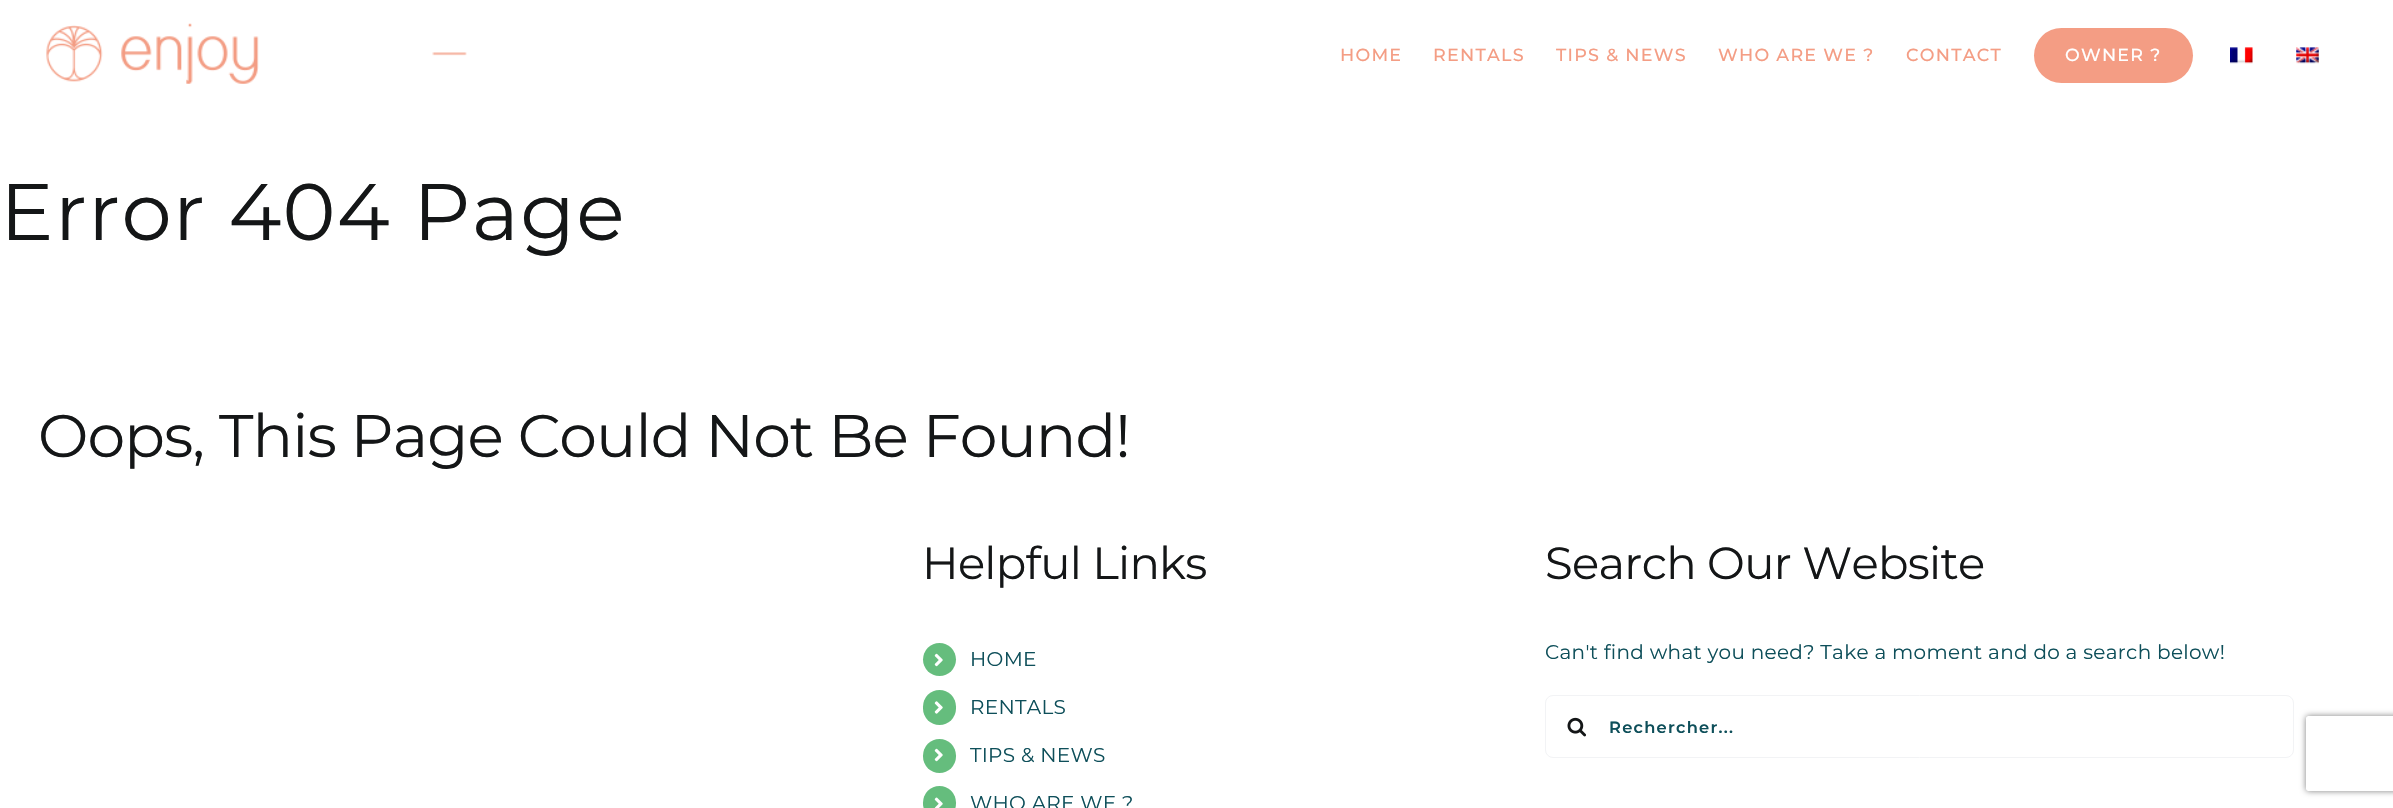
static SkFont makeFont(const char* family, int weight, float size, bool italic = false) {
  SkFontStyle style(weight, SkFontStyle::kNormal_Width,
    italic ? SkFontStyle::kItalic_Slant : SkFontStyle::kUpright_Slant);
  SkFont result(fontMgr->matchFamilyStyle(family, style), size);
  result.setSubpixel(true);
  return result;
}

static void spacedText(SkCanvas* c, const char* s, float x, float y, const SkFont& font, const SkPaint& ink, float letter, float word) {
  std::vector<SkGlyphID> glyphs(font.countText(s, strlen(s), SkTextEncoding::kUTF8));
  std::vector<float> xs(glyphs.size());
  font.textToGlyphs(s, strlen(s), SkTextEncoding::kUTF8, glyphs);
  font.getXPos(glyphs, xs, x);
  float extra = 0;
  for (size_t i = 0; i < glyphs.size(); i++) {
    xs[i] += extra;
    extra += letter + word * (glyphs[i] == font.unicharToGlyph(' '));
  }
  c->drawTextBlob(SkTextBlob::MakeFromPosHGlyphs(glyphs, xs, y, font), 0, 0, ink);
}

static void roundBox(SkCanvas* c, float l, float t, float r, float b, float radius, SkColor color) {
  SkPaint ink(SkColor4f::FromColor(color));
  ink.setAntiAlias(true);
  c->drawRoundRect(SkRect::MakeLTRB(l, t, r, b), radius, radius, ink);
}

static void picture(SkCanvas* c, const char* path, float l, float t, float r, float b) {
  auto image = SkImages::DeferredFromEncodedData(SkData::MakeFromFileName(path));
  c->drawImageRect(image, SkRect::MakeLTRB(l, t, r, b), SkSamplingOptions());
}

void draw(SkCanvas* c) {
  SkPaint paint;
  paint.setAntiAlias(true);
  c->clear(0xffffffff);
  picture(c, "img_01.png", 46, 23, 467, 84);
  SkFont face1 = makeFont("Montserrat", 500, 17.5f);
  paint.setColor(0xfff49d84);
  spacedText(c, "HOME", 1340, 61, face1, paint, 1.25f, 0);
  spacedText(c, "RENTALS", 1433, 61, face1, paint, 1.25f, 0);
  spacedText(c, "TIPS & NEWS", 1556, 61, face1, paint, 1.25f, 0);
  spacedText(c, "WHO ARE WE ?", 1718, 61, face1, paint, 1.25f, 0);
  spacedText(c, "CONTACT", 1906, 61, face1, paint, 1.25f, 0);
  roundBox(c, 2034, 28, 2193, 83, 27.5f, 0xfff49d84);
  paint.setColor(0xffffffff);
  spacedText(c, "OWNER ?", 2065, 61, face1, paint, 1.25f, 0);
  picture(c, "img_02.png", 2230, 47, 2253, 64);
  picture(c, "img_03.png", 2296, 47, 2319, 64);
  SkFont face2 = makeFont("Montserrat", 400, 80);
  paint.setColor(0xff141617);
  spacedText(c, "Error 404 Page", 0, 240, face2, paint, 1.25f, 0);
  SkFont face3 = makeFont("Montserrat", 400, 60);
  spacedText(c, "Oops, This Page Could Not Be Found!", 38, 457, face3, paint, -0.9f, 0);
  SkFont face4 = makeFont("Montserrat", 400, 45);
  spacedText(c, "Helpful Links", 922, 579, face4, paint, -0.7f, 0);
  paint.setColor(0xff65bd7d);
  c->drawCircle(939.5f, 659.5f, 16.5f, paint);
  picture(c, "img_04.png", 934, 653, 943, 667);
  SkFont face5 = makeFont("Montserrat", 400, 20);
  paint.setColor(0xff0e4f5a);
  spacedText(c, "HOME", 970, 666, face5, paint, 0.3f, 0);
  roundBox(c, 923, 690, 956, 725, 16.5f, 0xff65bd7d);
  picture(c, "img_05.png", 934, 701, 943, 714);
  spacedText(c, "RENTALS", 970, 714, face5, paint, 0.3f, 0);
  roundBox(c, 923, 739, 956, 773, 16.5f, 0xff65bd7d);
  picture(c, "img_04.png", 934, 748, 943, 762);
  spacedText(c, "TIPS & NEWS", 970, 762, face5, paint, 0.3f, 0);
  roundBox(c, 923, 786, 956, 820, 16.5f, 0xff65bd7d);
  picture(c, "img_06.png", 934, 797, 943, 808);
  spacedText(c, "WHO ARE WE ?", 970, 810, face5, paint, 0.3f, 0);
  paint.setColor(0xff141617);
  spacedText(c, "Search Our Website", 1545, 579, face4, paint, -0.7f, 0);
  paint.setColor(0xff0e4f5a);
  spacedText(c, "Can't find what you need? Take a moment and do a search below!", 1545, 659, face5, paint, 0.3f, 0);
  paint.setStyle(SkPaint::kStroke_Style);
  paint.setStrokeWidth(1);
  paint.setColor(0xfff2f3f5);
  c->drawRoundRect(SkRect::MakeLTRB(1545.5f, 695.5f, 2293.5f, 757.5f), 7.5f, 7.5f, paint);
  picture(c, "img_07.png", 1567, 717, 1586, 737);
  SkFont face6 = makeFont("Montserrat", 600, 16.25f);
  paint.setStyle(SkPaint::kFill_Style);
  paint.setColor(0xff0e4f5a);
  spacedText(c, "Rechercher...", 1609, 733, face6, paint, 1.25f, 0);
  c->save();
  c->clipPath(SkPathBuilder(SkPathFillType::kEvenOdd).moveTo(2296, 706).lineTo(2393, 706).lineTo(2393, 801).lineTo(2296, 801).close().moveTo(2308.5f, 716).lineTo(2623.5f, 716).cubicTo(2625, 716, 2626, 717, 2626, 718.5f).lineTo(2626, 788.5f).cubicTo(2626, 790, 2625, 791, 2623.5f, 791).lineTo(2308.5f, 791).cubicTo(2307, 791, 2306, 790, 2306, 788.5f).lineTo(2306, 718.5f).cubicTo(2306, 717, 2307, 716, 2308.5f, 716).close().detach(), true);
  paint.setColor(0xff808080);
  paint.setMaskFilter(SkMaskFilter::MakeBlur(kNormal_SkBlurStyle, 3));
  c->drawRoundRect(SkRect::MakeLTRB(2306, 716, 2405, 791), 2.5f, 2.5f, paint);
  paint.setMaskFilter(nullptr);
  c->restore();
}
